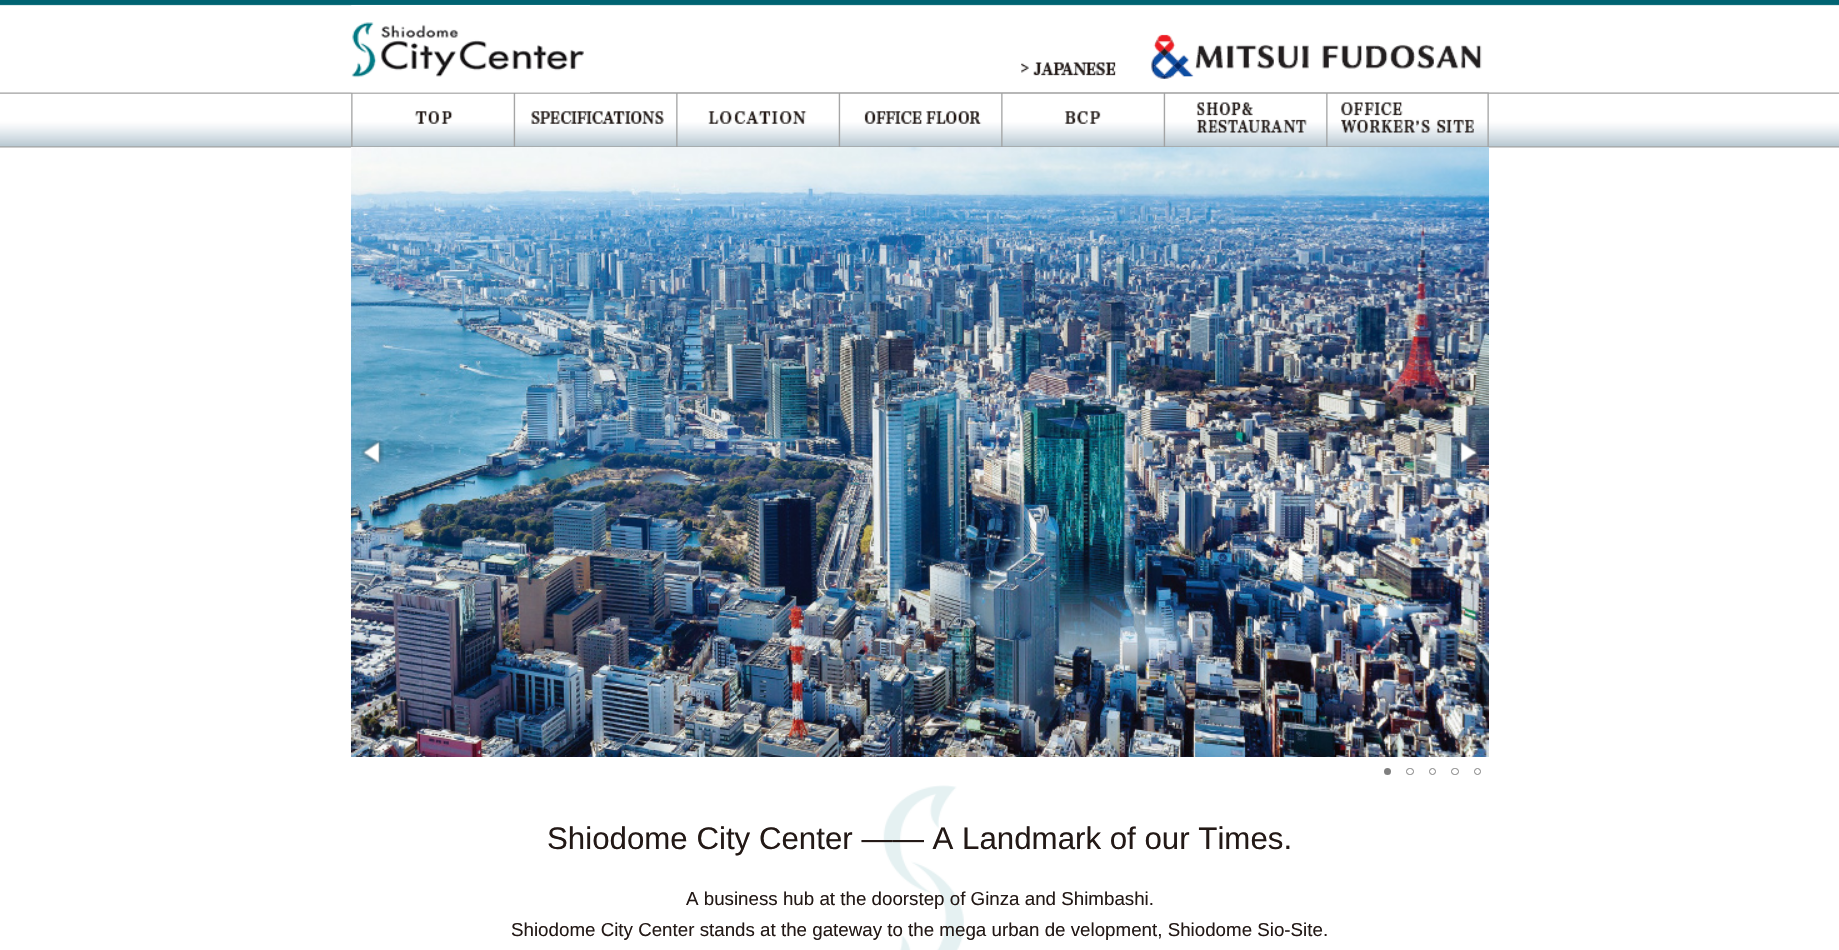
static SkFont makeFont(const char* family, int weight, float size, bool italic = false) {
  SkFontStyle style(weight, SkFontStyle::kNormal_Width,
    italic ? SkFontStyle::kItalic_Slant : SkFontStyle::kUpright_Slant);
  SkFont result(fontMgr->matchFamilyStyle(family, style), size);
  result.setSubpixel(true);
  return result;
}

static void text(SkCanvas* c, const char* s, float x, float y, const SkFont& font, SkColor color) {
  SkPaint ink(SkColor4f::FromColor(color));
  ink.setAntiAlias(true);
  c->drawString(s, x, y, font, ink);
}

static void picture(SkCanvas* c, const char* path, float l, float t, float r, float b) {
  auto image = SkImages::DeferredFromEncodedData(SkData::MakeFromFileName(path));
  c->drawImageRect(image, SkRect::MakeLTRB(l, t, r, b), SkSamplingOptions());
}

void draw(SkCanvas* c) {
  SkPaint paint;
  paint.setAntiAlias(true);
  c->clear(0xffffffff);
  picture(c, "img_01.png", 0, 0, 1839, 148);
  picture(c, "img_05.png", 351, 92, 514, 147);
  picture(c, "img_06.png", 513, 92, 677, 147);
  picture(c, "img_02.png", 351, 5, 590, 93);
  picture(c, "img_03.png", 1021, 62, 1117, 76);
  picture(c, "img_04.png", 1151, 34, 1482, 79);
  picture(c, "img_07.png", 676, 92, 839, 147);
  picture(c, "img_08.png", 838, 92, 1002, 147);
  picture(c, "img_09.png", 1001, 92, 1164, 147);
  picture(c, "img_10.png", 1163, 92, 1327, 147);
  picture(c, "img_11.png", 1326, 92, 1489, 147);
  picture(c, "img_12.png", 351, 147, 1489, 757);
  picture(c, "img_13.png", 361, 439, 384, 466);
  picture(c, "img_14.png", 1456, 440, 1478, 466);
  paint.setColor(0xff7f7f7f);
  c->drawCircle(1387.5f, 771.5f, 3.5f, paint);
  paint.setStyle(SkPaint::kStroke_Style);
  paint.setStrokeWidth(1);
  c->drawRoundRect(SkRect::MakeLTRB(1406.5f, 768.5f, 1413.5f, 774.5f), 3, 3, paint);
  c->drawCircle(1432.5f, 771.5f, 3, paint);
  c->drawRoundRect(SkRect::MakeLTRB(1451.5f, 768.5f, 1458.5f, 774.5f), 3, 3, paint);
  c->drawCircle(1477.5f, 771.5f, 3, paint);
  picture(c, "img_15.png", 883, 785, 964, 950);
  SkFont face1 = makeFont("Liberation Sans", 400, 31.25f);
  text(c, "Shiodome City Center ―― A Landmark of our Times.", 547, 849, face1, 0xff231916);
  SkFont face2 = makeFont("Liberation Sans", 400, 18.75f);
  text(c, "A business hub at the doorstep of Ginza and Shimbashi.", 686, 905, face2, 0xff231916);
  text(c, "Shiodome City Center stands at the gateway to the mega urban de velopment, Shiodome Sio-Site.", 511, 936, face2, 0xff231916);
}
